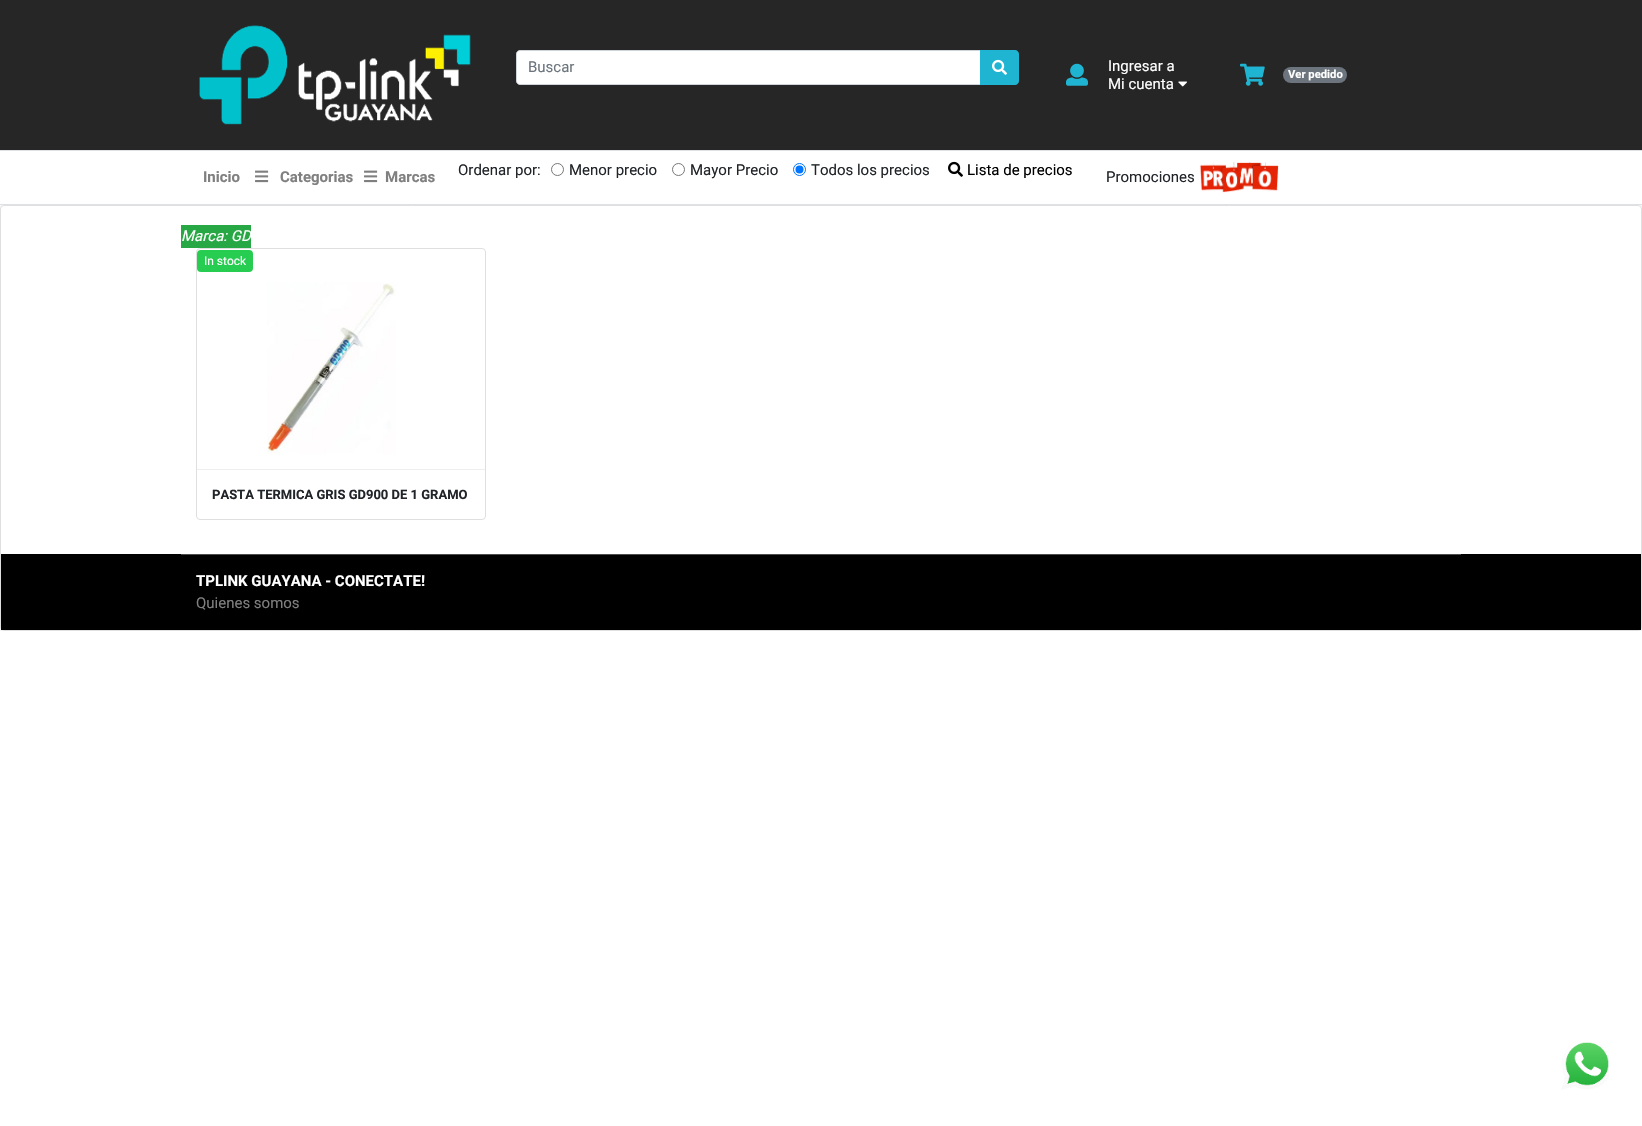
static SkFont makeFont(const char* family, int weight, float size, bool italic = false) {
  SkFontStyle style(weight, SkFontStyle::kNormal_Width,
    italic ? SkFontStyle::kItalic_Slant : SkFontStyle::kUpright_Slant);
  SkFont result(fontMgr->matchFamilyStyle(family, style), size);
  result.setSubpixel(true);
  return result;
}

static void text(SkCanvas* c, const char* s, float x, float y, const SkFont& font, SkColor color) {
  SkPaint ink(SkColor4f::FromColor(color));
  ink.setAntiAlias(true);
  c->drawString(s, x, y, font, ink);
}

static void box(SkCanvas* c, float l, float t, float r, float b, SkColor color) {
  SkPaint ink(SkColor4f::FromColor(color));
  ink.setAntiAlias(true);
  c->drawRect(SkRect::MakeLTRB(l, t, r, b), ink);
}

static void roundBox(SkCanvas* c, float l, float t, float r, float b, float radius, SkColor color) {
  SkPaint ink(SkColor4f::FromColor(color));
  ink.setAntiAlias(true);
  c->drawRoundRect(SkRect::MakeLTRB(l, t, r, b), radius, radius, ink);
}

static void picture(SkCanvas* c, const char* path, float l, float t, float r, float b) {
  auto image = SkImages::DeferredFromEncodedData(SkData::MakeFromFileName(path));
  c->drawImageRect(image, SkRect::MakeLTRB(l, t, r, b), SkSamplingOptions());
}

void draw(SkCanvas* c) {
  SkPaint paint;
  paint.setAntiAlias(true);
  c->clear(0xffffffff);
  box(c, 0, 0, 1642, 150, 0xff262626);
  box(c, 0, 150, 1642, 151, 0xffdee2e6);
  picture(c, "img_01.png", 199, 25, 471, 125);
  paint.setColor(0xffffffff);
  c->drawPath(SkPathBuilder().moveTo(520, 50.5f).lineTo(980.5f, 50.5f).lineTo(980.5f, 84.5f).lineTo(520, 84.5f).cubicTo(518, 84.5f, 516.5f, 83, 516.5f, 81).lineTo(516.5f, 54).cubicTo(516.5f, 52, 518, 50.5f, 520, 50.5f).close().detach(), paint);
  paint.setStyle(SkPaint::kStroke_Style);
  paint.setStrokeWidth(1);
  paint.setColor(0xffced4da);
  c->drawPath(SkPathBuilder().moveTo(520, 50.5f).lineTo(980.5f, 50.5f).lineTo(980.5f, 84.5f).lineTo(520, 84.5f).cubicTo(518, 84.5f, 516.5f, 83, 516.5f, 81).lineTo(516.5f, 54).cubicTo(516.5f, 52, 518, 50.5f, 520, 50.5f).close().detach(), paint);
  SkFont face1 = makeFont("Roboto", 400, 15);
  text(c, "Buscar", 528, 72, face1, 0xff6c757d);
  paint.setStyle(SkPaint::kFill_Style);
  paint.setColor(0xff1fb4d2);
  c->drawPath(SkPathBuilder().moveTo(980, 50).lineTo(1015, 50).cubicTo(1017, 50, 1019, 52, 1019, 54).lineTo(1019, 81).cubicTo(1019, 83, 1017, 85, 1015, 85).lineTo(980, 85).close().detach(), paint);
  picture(c, "img_02.png", 992, 59, 1007, 75);
  picture(c, "img_03.png", 1066, 63, 1088, 86);
  text(c, "Ingresar a", 1108, 71, face1, 0xffffffff);
  text(c, "Mi cuenta", 1108, 89, face1, 0xffffffff);
  picture(c, "img_04.png", 1178, 81, 1187, 87);
  picture(c, "img_05.png", 1240, 63, 1265, 86);
  roundBox(c, 1283, 67, 1347, 83, 8, 0xff6c757d);
  SkFont face2 = makeFont("Roboto", 700, 11.25f);
  text(c, "Ver pedido", 1288, 78, face2, 0xffffffff);
  box(c, 0, 204, 1642, 205, 0xffdee2e6);
  SkFont face3 = makeFont("Roboto", 700, 15);
  text(c, "Inicio", 203, 182, face3, 0xff808080);
  picture(c, "img_06.png", 255, 170, 269, 183);
  text(c, "Categorias", 280, 182, face3, 0xff808080);
  picture(c, "img_06.png", 364, 170, 378, 183);
  text(c, "Marcas", 385, 182, face3, 0xff808080);
  text(c, "Ordenar por:", 458, 175, face1, 0xff212529);
  paint.setStyle(SkPaint::kStroke_Style);
  paint.setColor(0xff767676);
  c->drawCircle(557.5f, 169.5f, 6, paint);
  text(c, "Menor precio", 569, 175, face1, 0xff212529);
  c->drawCircle(678.5f, 169.5f, 6, paint);
  text(c, "Mayor Precio", 690, 175, face1, 0xff212529);
  paint.setColor(0xff0075ff);
  c->drawCircle(799.5f, 169.5f, 6, paint);
  paint.setStyle(SkPaint::kFill_Style);
  c->drawCircle(799.5f, 169.5f, 4, paint);
  text(c, "Todos los precios", 811, 175, face1, 0xff212529);
  picture(c, "img_07.png", 948, 161, 963, 177);
  text(c, "Lista de precios", 967, 175, face1, 0xff000000);
  text(c, "Promociones", 1106, 182, face1, 0xff212529);
  picture(c, "img_08.png", 1200, 162, 1279, 193);
  box(c, 0, 205, 1642, 631, 0xfff8f8f8);
  paint.setColor(0xffffffff);
  c->drawRoundRect(SkRect::MakeLTRB(0.5f, 205.5f, 1641.5f, 630.5f), 3.5f, 3.5f, paint);
  paint.setStyle(SkPaint::kStroke_Style);
  paint.setColor(0xffdfdfdf);
  c->drawRoundRect(SkRect::MakeLTRB(0.5f, 205.5f, 1641.5f, 630.5f), 3.5f, 3.5f, paint);
  box(c, 181, 225, 251, 248, 0xff28a745);
  SkFont face4 = makeFont("Roboto", 400, 15, true);
  text(c, "Marca: GD", 181, 241, face4, 0xffffffff);
  c->drawRoundRect(SkRect::MakeLTRB(196.5f, 248.5f, 485.5f, 519.5f), 3.5f, 3.5f, paint);
  roundBox(c, 197, 250, 253, 272, 4, 0xff26cd51);
  SkFont face5 = makeFont("Roboto", 400, 12);
  text(c, "In stock", 204, 265, face5, 0xffffffff);
  picture(c, "img_09.png", 267, 282, 396, 455);
  box(c, 197, 469, 485, 470, 0xffeeeeee);
  SkFont face6 = makeFont("Roboto", 700, 13);
  text(c, "PASTA TERMICA GRIS GD900 DE 1 GRAMO", 212, 499, face6, 0xff212529);
  box(c, 1, 554, 1641, 630, 0xff000000);
  box(c, 181, 554, 1461, 555, 0xff4d4d4d);
  text(c, "TPLINK GUAYANA - CONECTATE!", 196, 586, face3, 0xffffffff);
  text(c, "Quienes somos", 196, 608, face1, 0xff808080);
  picture(c, "img_10.png", 1561, 1042, 1609, 1090);
}
